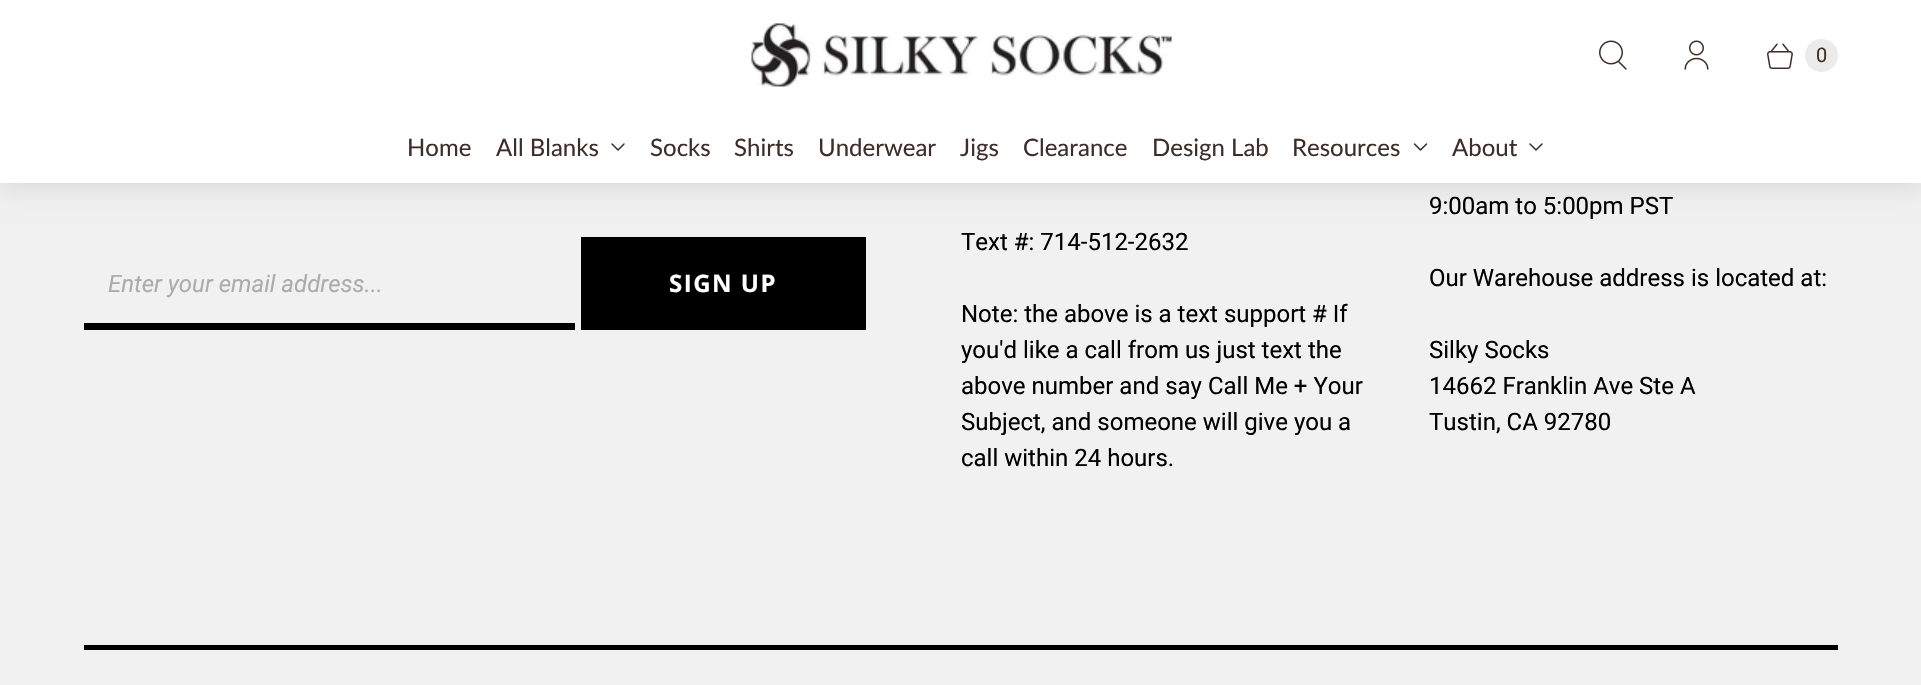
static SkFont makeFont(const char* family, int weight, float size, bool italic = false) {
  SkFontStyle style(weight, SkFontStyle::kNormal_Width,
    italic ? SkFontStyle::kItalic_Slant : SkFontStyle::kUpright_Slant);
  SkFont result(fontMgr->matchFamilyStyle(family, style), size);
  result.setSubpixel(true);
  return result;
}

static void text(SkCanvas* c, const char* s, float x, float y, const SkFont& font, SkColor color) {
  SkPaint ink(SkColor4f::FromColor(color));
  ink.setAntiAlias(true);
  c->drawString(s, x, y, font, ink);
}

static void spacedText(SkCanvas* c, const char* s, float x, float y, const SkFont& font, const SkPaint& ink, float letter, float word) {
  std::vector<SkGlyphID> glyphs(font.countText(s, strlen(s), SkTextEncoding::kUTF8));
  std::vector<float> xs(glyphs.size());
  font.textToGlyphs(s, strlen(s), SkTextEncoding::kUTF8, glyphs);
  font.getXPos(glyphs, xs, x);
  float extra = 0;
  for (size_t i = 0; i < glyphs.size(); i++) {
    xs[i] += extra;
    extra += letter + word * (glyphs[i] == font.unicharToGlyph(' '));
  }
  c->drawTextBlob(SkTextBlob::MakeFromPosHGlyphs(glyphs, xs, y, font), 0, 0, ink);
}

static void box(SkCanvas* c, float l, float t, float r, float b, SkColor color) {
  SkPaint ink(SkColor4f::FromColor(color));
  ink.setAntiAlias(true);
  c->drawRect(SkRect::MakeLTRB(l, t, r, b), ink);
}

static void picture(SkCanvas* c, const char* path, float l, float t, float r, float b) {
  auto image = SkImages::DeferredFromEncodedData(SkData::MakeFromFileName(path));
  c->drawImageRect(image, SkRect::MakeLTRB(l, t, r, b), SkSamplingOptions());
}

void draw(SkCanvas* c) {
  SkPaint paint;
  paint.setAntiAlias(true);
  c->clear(0xfff1f1f1);
  paint.setColor(0x1a000000);
  paint.setMaskFilter(SkMaskFilter::MakeBlur(kNormal_SkBlurStyle, 12));
  c->drawRect(SkRect::MakeLTRB(-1, 2, 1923, 188), paint);
  paint.setMaskFilter(nullptr);
  box(c, 0, 0, 1921, 183, 0xffffffff);
  picture(c, "img_01.png", 751, 23, 1172, 87);
  picture(c, "img_02.png", 1599, 40, 1627, 70);
  picture(c, "img_03.png", 1684, 40, 1709, 70);
  picture(c, "img_04.png", 1767, 43, 1793, 69);
  paint.setColor(0xffeceaea);
  c->drawCircle(1821.5f, 55.5f, 16.5f, paint);
  SkFont face1 = makeFont("Roboto", 400, 20);
  text(c, "0", 1816, 62, face1, 0xff3e2d29);
  SkFont face2 = makeFont("Lato", 400, 24);
  text(c, "Home", 407, 156, face2, 0xff3e2d29);
  text(c, "All Blanks", 496, 156, face2, 0xff3e2d29);
  picture(c, "img_05.png", 611, 143, 625, 151);
  text(c, "Socks", 650, 156, face2, 0xff3e2d29);
  text(c, "Shirts", 734, 156, face2, 0xff3e2d29);
  text(c, "Underwear", 818, 156, face2, 0xff3e2d29);
  text(c, "Jigs", 960, 156, face2, 0xff3e2d29);
  text(c, "Clearance", 1023, 156, face2, 0xff3e2d29);
  text(c, "Design Lab", 1152, 156, face2, 0xff3e2d29);
  text(c, "Resources", 1292, 156, face2, 0xff3e2d29);
  picture(c, "img_06.png", 1413, 143, 1428, 151);
  text(c, "About", 1452, 156, face2, 0xff3e2d29);
  picture(c, "img_05.png", 1529, 143, 1543, 151);
  box(c, 84, 645, 1838, 650, 0xff000000);
  box(c, 84, 323, 575, 330, 0xff000000);
  SkFont face3 = makeFont("Roboto", 400, 24, true);
  text(c, "Enter your email address...", 108, 292, face3, 0xffacacac);
  box(c, 583, 239, 864, 318, 0xff000000);
  box(c, 581, 237, 866, 239, 0xff000000);
  box(c, 864, 237, 866, 318, 0xff000000);
  box(c, 583, 318, 866, 330, 0xff000000);
  box(c, 581, 237, 583, 330, 0xff000000);
  SkFont face4 = makeFont("Open Sans", 700, 24);
  paint.setColor(0xffffffff);
  spacedText(c, "SIGN UP", 669, 292, face4, paint, 1.5f, 0);
  SkFont face5 = makeFont("Roboto", 400, 24);
  text(c, "Text #: 714-512-2632", 961, 250, face5, 0xff000000);
  text(c, "Note: the above is a text support # If", 961, 322, face5, 0xff000000);
  text(c, "you'd like a call from us just text the", 961, 358, face5, 0xff000000);
  text(c, "above number and say Call Me + Your", 961, 394, face5, 0xff000000);
  text(c, "Subject, and someone will give you a", 961, 430, face5, 0xff000000);
  text(c, "call within 24 hours.", 961, 466, face5, 0xff000000);
  text(c, "9:00am to 5:00pm PST", 1429, 214, face5, 0xff000000);
  text(c, "Our Warehouse address is located at:", 1429, 286, face5, 0xff000000);
  text(c, "Silky Socks", 1429, 358, face5, 0xff000000);
  text(c, "14662 Franklin Ave Ste A", 1429, 394, face5, 0xff000000);
  text(c, "Tustin, CA 92780", 1429, 430, face5, 0xff000000);
}
